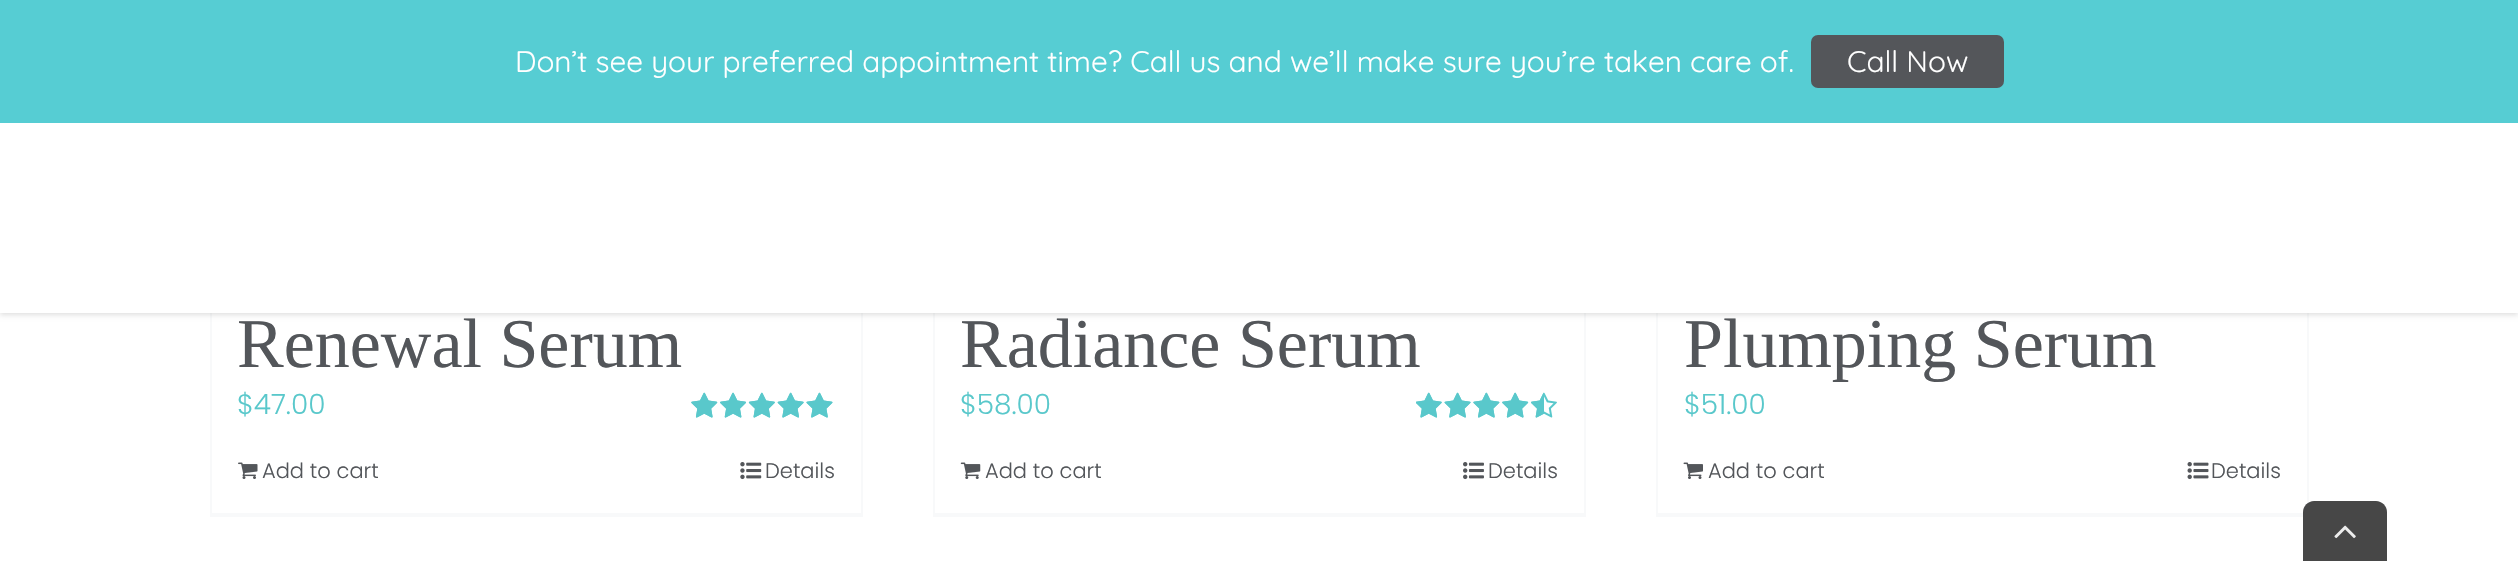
static SkFont makeFont(const char* family, int weight, float size, bool italic = false) {
  SkFontStyle style(weight, SkFontStyle::kNormal_Width,
    italic ? SkFontStyle::kItalic_Slant : SkFontStyle::kUpright_Slant);
  SkFont result(fontMgr->matchFamilyStyle(family, style), size);
  result.setSubpixel(true);
  return result;
}

static void text(SkCanvas* c, const char* s, float x, float y, const SkFont& font, SkColor color) {
  SkPaint ink(SkColor4f::FromColor(color));
  ink.setAntiAlias(true);
  c->drawString(s, x, y, font, ink);
}

static void box(SkCanvas* c, float l, float t, float r, float b, SkColor color) {
  SkPaint ink(SkColor4f::FromColor(color));
  ink.setAntiAlias(true);
  c->drawRect(SkRect::MakeLTRB(l, t, r, b), ink);
}

static void roundBox(SkCanvas* c, float l, float t, float r, float b, float radius, SkColor color) {
  SkPaint ink(SkColor4f::FromColor(color));
  ink.setAntiAlias(true);
  c->drawRoundRect(SkRect::MakeLTRB(l, t, r, b), radius, radius, ink);
}

static void picture(SkCanvas* c, const char* path, float l, float t, float r, float b) {
  auto image = SkImages::DeferredFromEncodedData(SkData::MakeFromFileName(path));
  c->drawImageRect(image, SkRect::MakeLTRB(l, t, r, b), SkSamplingOptions());
}

void draw(SkCanvas* c) {
  SkPaint paint;
  paint.setAntiAlias(true);
  c->clear(0xffffffff);
  box(c, 861, 313, 863, 516, 0xfff8f9fa);
  box(c, 210, 513, 863, 517, 0xfff8f9fa);
  box(c, 210, 313, 212, 516, 0xfff8f9fa);
  box(c, 1584, 313, 1586, 516, 0xfff8f9fa);
  box(c, 933, 513, 1586, 517, 0xfff8f9fa);
  box(c, 933, 313, 935, 516, 0xfff8f9fa);
  box(c, 2307, 313, 2309, 516, 0xfff8f9fa);
  box(c, 1656, 513, 2308, 517, 0xfff8f9fa);
  box(c, 1656, 313, 1658, 516, 0xfff8f9fa);
  paint.setColor(0x1f000000);
  paint.setMaskFilter(SkMaskFilter::MakeBlur(kNormal_SkBlurStyle, 2.5f));
  c->drawRect(SkRect::MakeLTRB(0, 2, 2518, 315), paint);
  paint.setMaskFilter(nullptr);
  box(c, 0, 0, 2518, 123, 0xff56cdd3);
  SkFont face1 = makeFont("Quicksand", 400, 29.75f);
  text(c, "Don’t see your preferred appointment time? Call us and we’ll make sure you’re taken care of.", 515, 72, face1, 0xffffffff);
  roundBox(c, 1811, 35, 2004, 88, 7, 0xff54565a);
  text(c, "Call Now", 1847, 72, face1, 0xffffffff);
  box(c, 0, 123, 2518, 313, 0xffffffff);
  SkFont face2 = makeFont("Liberation Serif", 400, 70);
  text(c, "Renewal Serum", 237, 367, face2, 0xff53565a);
  SkFont face3 = makeFont("Poppins", 300, 28);
  text(c, "$47.00", 237, 414, face3, 0xff59c8cb);
  picture(c, "img_01.png", 691, 392, 833, 418);
  picture(c, "img_02.png", 691, 392, 833, 418);
  picture(c, "img_03.png", 238, 462, 258, 479);
  SkFont face4 = makeFont("Poppins", 300, 21);
  text(c, "Add to cart", 262, 478, face4, 0xff53565a);
  picture(c, "img_04.png", 740, 462, 762, 480);
  text(c, "Details", 765, 478, face4, 0xff53565a);
  text(c, "Radiance Serum", 960, 367, face2, 0xff53565a);
  text(c, "$58.00", 960, 414, face3, 0xff59c8cb);
  picture(c, "img_05.png", 1416, 392, 1557, 418);
  picture(c, "img_06.png", 1416, 392, 1544, 418);
  picture(c, "img_07.png", 960, 462, 981, 479);
  text(c, "Add to cart", 985, 478, face4, 0xff53565a);
  picture(c, "img_08.png", 1463, 462, 1484, 480);
  text(c, "Details", 1488, 478, face4, 0xff53565a);
  text(c, "Plumping Serum", 1684, 367, face2, 0xff53565a);
  text(c, "$51.00", 1684, 414, face3, 0xff59c8cb);
  picture(c, "img_09.png", 1683, 462, 1703, 479);
  text(c, "Add to cart", 1708, 478, face4, 0xff53565a);
  picture(c, "img_10.png", 2187, 462, 2209, 480);
  text(c, "Details", 2211, 478, face4, 0xff53565a);
  paint.setColor(0xe6333333);
  c->drawPath(SkPathBuilder().moveTo(2314, 501).lineTo(2376, 501).cubicTo(2382, 501, 2387, 506, 2387, 512).lineTo(2387, 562).lineTo(2303, 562).lineTo(2303, 512).cubicTo(2303, 506, 2308, 501, 2314, 501).close().detach(), paint);
  picture(c, "img_11.png", 2334, 525, 2356, 539);
}
